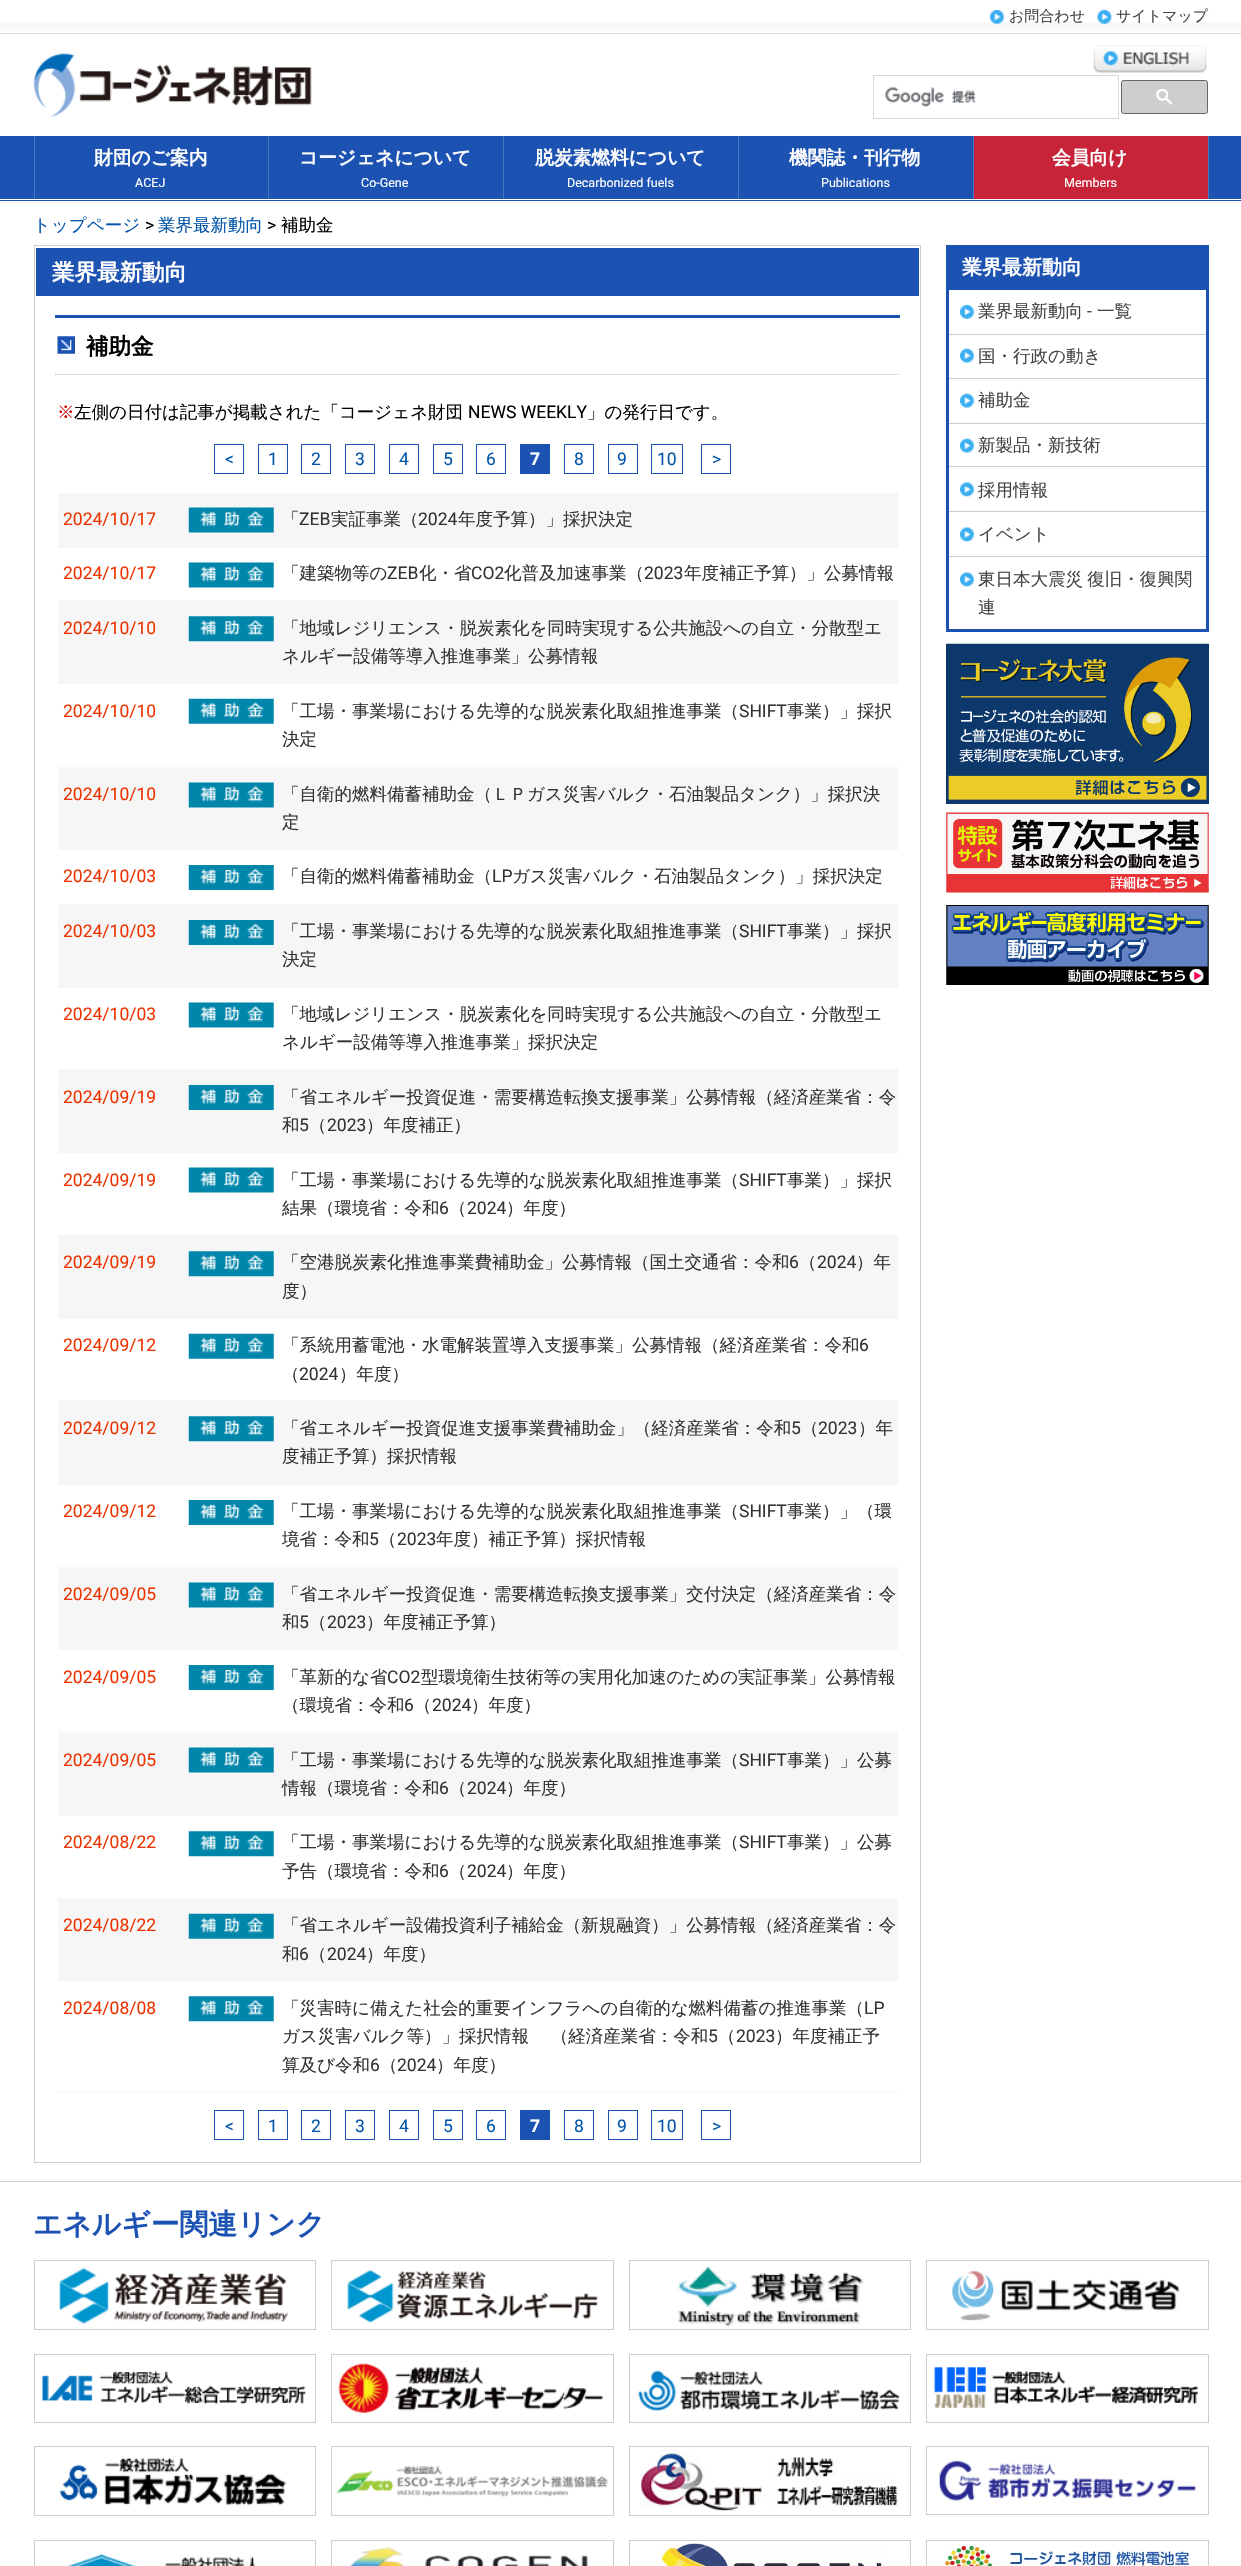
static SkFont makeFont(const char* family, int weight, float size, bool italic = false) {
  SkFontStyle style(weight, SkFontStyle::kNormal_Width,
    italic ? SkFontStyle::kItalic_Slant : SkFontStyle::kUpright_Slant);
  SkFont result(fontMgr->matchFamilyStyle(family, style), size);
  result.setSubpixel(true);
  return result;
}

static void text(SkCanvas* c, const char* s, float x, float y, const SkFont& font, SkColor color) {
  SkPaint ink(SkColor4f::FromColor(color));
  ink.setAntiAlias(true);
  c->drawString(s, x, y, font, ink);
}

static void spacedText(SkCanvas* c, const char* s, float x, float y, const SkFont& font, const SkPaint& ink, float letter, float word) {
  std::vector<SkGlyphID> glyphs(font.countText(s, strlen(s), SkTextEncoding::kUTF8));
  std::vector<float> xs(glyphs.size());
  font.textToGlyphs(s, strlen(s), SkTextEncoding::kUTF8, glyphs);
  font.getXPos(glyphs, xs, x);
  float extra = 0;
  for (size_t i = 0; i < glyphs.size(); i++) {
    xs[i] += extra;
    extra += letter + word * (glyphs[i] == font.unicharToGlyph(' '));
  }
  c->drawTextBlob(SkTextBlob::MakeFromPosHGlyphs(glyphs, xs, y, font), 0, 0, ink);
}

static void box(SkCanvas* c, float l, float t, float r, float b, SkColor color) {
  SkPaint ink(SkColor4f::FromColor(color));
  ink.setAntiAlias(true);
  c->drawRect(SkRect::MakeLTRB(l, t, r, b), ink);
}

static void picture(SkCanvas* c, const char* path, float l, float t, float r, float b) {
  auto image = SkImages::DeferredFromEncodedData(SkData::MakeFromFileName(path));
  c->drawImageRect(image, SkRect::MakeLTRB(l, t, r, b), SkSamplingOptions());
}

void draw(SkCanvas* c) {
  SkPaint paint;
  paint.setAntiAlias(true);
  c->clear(0xffffffff);
  box(c, 0, 22, 1241, 31, 0xfff9f9f9);
  box(c, 0, 33, 1241, 34, 0xffdddddd);
  picture(c, "img_01.png", 990, 10, 1004, 24);
  SkFont face1 = makeFont("WenQuanYi Zen Hei", 500, 15);
  text(c, "お問合わせ", 1009, 21, face1, 0xff444444);
  picture(c, "img_02.png", 1097, 10, 1112, 24);
  text(c, "サイトマップ", 1116, 21, face1, 0xff444444);
  picture(c, "img_03.png", 33, 53, 312, 118);
  picture(c, "img_04.png", 1093, 45, 1207, 73);
  paint.setStyle(SkPaint::kStroke_Style);
  paint.setStrokeWidth(1);
  paint.setColor(0xffd9d9d9);
  c->drawRect(SkRect::MakeLTRB(873.5f, 75.5f, 1118.5f, 118.5f), paint);
  picture(c, "img_05.png", 885, 87, 976, 107);
  paint.setStyle(SkPaint::kFill_Style);
  paint.setColor(0xffcecece);
  c->drawRoundRect(SkRect::MakeLTRB(1121.5f, 80.5f, 1207.5f, 113.5f), 2, 2, paint);
  paint.setStyle(SkPaint::kStroke_Style);
  paint.setColor(0xff666666);
  c->drawRoundRect(SkRect::MakeLTRB(1121.5f, 80.5f, 1207.5f, 113.5f), 2, 2, paint);
  picture(c, "img_06.png", 1156, 89, 1173, 105);
  box(c, 0, 200, 1241, 201, 0xff1c52b2);
  box(c, 0, 136, 1241, 199, 0xff1c52b2);
  box(c, 34, 136, 35, 199, 0xff4a76c1);
  box(c, 268, 136, 269, 199, 0xff4a76c1);
  SkFont face2 = makeFont("WenQuanYi Zen Hei", 700, 18.75f);
  text(c, "財団のご案内", 94, 164, face2, 0xffffffff);
  SkFont face3 = makeFont("Roboto", 400, 12.5f);
  text(c, "ACEJ", 135, 187, face3, 0xffffffff);
  box(c, 503, 136, 504, 199, 0xff4a76c1);
  text(c, "コージェネについて", 299, 164, face2, 0xffffffff);
  text(c, "Co-Gene", 361, 187, face3, 0xffffffff);
  box(c, 738, 136, 739, 199, 0xff4a76c1);
  text(c, "脱炭素燃料について", 535, 164, face2, 0xffffffff);
  text(c, "Decarbonized fuels", 567, 187, face3, 0xffffffff);
  box(c, 973, 136, 974, 199, 0xff4a76c1);
  text(c, "機関誌・刊行物", 789, 164, face2, 0xffffffff);
  text(c, "Publications", 821, 187, face3, 0xffffffff);
  box(c, 974, 136, 1208, 199, 0xffc7243a);
  box(c, 1208, 136, 1209, 199, 0xff4a76c1);
  text(c, "会員向け", 1052, 164, face2, 0xffffffff);
  text(c, "Members", 1064, 187, face3, 0xffffffff);
  SkFont face4 = makeFont("WenQuanYi Zen Hei", 500, 17.5f);
  text(c, "トップページ", 33, 231, face4, 0xff0055aa);
  SkFont face5 = makeFont("Roboto", 400, 17.5f);
  text(c, ">", 145, 231, face5, 0xff000000);
  text(c, "業界最新動向", 158, 231, face4, 0xff0055aa);
  text(c, ">", 267, 231, face5, 0xff000000);
  text(c, "補助金", 281, 231, face4, 0xff000000);
  paint.setColor(0xffcccccc);
  c->drawRect(SkRect::MakeLTRB(34.5f, 245.5f, 920.5f, 2162.5f), paint);
  box(c, 36, 248, 919, 296, 0xff1c52b2);
  SkFont face6 = makeFont("WenQuanYi Zen Hei", 700, 22.5f);
  text(c, "業界最新動向", 52, 280, face6, 0xffffffff);
  picture(c, "img_07.png", 57, 336, 75, 354);
  box(c, 55, 315, 900, 318, 0xff1c52b2);
  paint.setStrokeWidth(1.2f);
  paint.setColor(0xffbbbbbb);
  paint.setPathEffect(SkDashPathEffect::Make({{1.25f, 1.25f}}, 0));
  c->drawPath(SkPathBuilder().moveTo(55, 374.5f).lineTo(900, 374.5f).detach(), paint);
  paint.setPathEffect(nullptr);
  text(c, "補助金", 86, 354, face6, 0xff000000);
  text(c, "※", 57, 418, face4, 0xffcc0500);
  text(c, "左側の日付は記事が掲載された「コージェネ財団", 74, 418, face4, 0xff000000);
  text(c, "NEWS WEEKLY", 468, 418, face5, 0xff000000);
  text(c, "」の発行日です。", 587, 418, face4, 0xff000000);
  paint.setStrokeWidth(1);
  paint.setColor(0xff1c52b2);
  c->drawRect(SkRect::MakeLTRB(214.5f, 444.5f, 243.5f, 473.5f), paint);
  text(c, "<", 225, 465, face5, 0xff0055aa);
  c->drawRect(SkRect::MakeLTRB(258.5f, 444.5f, 287.5f, 473.5f), paint);
  text(c, "1", 268, 465, face5, 0xff0055aa);
  c->drawRect(SkRect::MakeLTRB(301.5f, 444.5f, 330.5f, 473.5f), paint);
  text(c, "2", 311, 465, face5, 0xff0055aa);
  c->drawRect(SkRect::MakeLTRB(345.5f, 444.5f, 374.5f, 473.5f), paint);
  text(c, "3", 355, 465, face5, 0xff0055aa);
  c->drawRect(SkRect::MakeLTRB(389.5f, 444.5f, 418.5f, 473.5f), paint);
  text(c, "4", 399, 465, face5, 0xff0055aa);
  c->drawRect(SkRect::MakeLTRB(433.5f, 444.5f, 462.5f, 473.5f), paint);
  text(c, "5", 443, 465, face5, 0xff0055aa);
  c->drawRect(SkRect::MakeLTRB(476.5f, 444.5f, 505.5f, 473.5f), paint);
  text(c, "6", 486, 465, face5, 0xff0055aa);
  box(c, 520, 444, 550, 474, 0xff1c52b2);
  SkFont face7 = makeFont("Roboto", 700, 17.5f);
  text(c, "7", 530, 465, face7, 0xffffffff);
  c->drawRect(SkRect::MakeLTRB(564.5f, 444.5f, 593.5f, 473.5f), paint);
  text(c, "8", 574, 465, face5, 0xff0055aa);
  c->drawRect(SkRect::MakeLTRB(608.5f, 444.5f, 637.5f, 473.5f), paint);
  text(c, "9", 617, 465, face5, 0xff0055aa);
  c->drawRect(SkRect::MakeLTRB(651.5f, 444.5f, 682.5f, 473.5f), paint);
  text(c, "10", 657, 465, face5, 0xff0055aa);
  c->drawRect(SkRect::MakeLTRB(701.5f, 444.5f, 730.5f, 473.5f), paint);
  text(c, ">", 712, 465, face5, 0xff0055aa);
  box(c, 58, 493, 898, 548, 0xfff6f6f6);
  text(c, "2024/10/17", 63, 525, face5, 0xffee3300);
  picture(c, "img_08.png", 188, 507, 274, 533);
  text(c, "「", 282, 525, face4, 0xff333333);
  text(c, "ZEB", 299, 525, face5, 0xff333333);
  text(c, "実証事業（", 331, 525, face4, 0xff333333);
  text(c, "2024", 418, 525, face5, 0xff333333);
  text(c, "年度予算）」採択決定", 458, 525, face4, 0xff333333);
  box(c, 58, 600, 898, 684, 0xfff6f6f6);
  text(c, "2024/10/17", 63, 579, face5, 0xffee3300);
  picture(c, "img_09.png", 188, 562, 274, 588);
  text(c, "「建築物等の", 282, 579, face4, 0xff333333);
  text(c, "ZEB", 387, 579, face5, 0xff333333);
  text(c, "化・省", 419, 579, face4, 0xff333333);
  text(c, "CO2", 471, 579, face5, 0xff333333);
  text(c, "化普及加速事業（", 504, 579, face4, 0xff333333);
  text(c, "2023", 644, 579, face5, 0xff333333);
  text(c, "年度補正予算）」公募情報", 684, 579, face4, 0xff333333);
  text(c, "2024/10/10", 63, 634, face5, 0xffee3300);
  picture(c, "img_10.png", 188, 616, 274, 642);
  text(c, "「地域レジリエンス・脱炭素化を同時実現する公共施設への自立・分散型エ", 282, 634, face4, 0xff333333);
  text(c, "ネルギー設備等導入推進事業」公募情報", 282, 662, face4, 0xff333333);
  box(c, 58, 766, 898, 767, 0xfff6f6f6);
  text(c, "2024/10/10", 63, 717, face5, 0xffee3300);
  picture(c, "img_11.png", 188, 698, 274, 724);
  text(c, "「工場・事業場における先導的な脱炭素化取組推進事業（", 282, 717, face4, 0xff333333);
  text(c, "SHIFT", 739, 717, face5, 0xff333333);
  text(c, "事業）」採択", 787, 717, face4, 0xff333333);
  text(c, "決定", 282, 745, face4, 0xff333333);
  box(c, 58, 768, 898, 850, 0xfff6f6f6);
  text(c, "2024/10/10", 63, 800, face5, 0xffee3300);
  picture(c, "img_08.png", 188, 782, 274, 808);
  text(c, "「自衛的燃料備蓄補助金（ＬＰガス災害バルク・石油製品タンク）」採択決", 282, 800, face4, 0xff333333);
  text(c, "定", 282, 828, face4, 0xff333333);
  box(c, 58, 904, 898, 988, 0xfff6f6f6);
  text(c, "2024/10/03", 63, 882, face5, 0xffee3300);
  picture(c, "img_12.png", 188, 865, 274, 890);
  text(c, "「自衛的燃料備蓄補助金（", 282, 882, face4, 0xff333333);
  text(c, "LP", 492, 882, face5, 0xff333333);
  text(c, "ガス災害バルク・石油製品タンク）」採択決定", 512, 882, face4, 0xff333333);
  text(c, "2024/10/03", 63, 937, face5, 0xffee3300);
  picture(c, "img_13.png", 188, 920, 274, 945);
  text(c, "「工場・事業場における先導的な脱炭素化取組推進事業（", 282, 937, face4, 0xff333333);
  text(c, "SHIFT", 739, 937, face5, 0xff333333);
  text(c, "事業）」採択", 787, 937, face4, 0xff333333);
  text(c, "決定", 282, 965, face4, 0xff333333);
  box(c, 58, 1069, 898, 1153, 0xfff6f6f6);
  text(c, "2024/10/03", 63, 1020, face5, 0xffee3300);
  picture(c, "img_09.png", 188, 1002, 274, 1028);
  text(c, "「地域レジリエンス・脱炭素化を同時実現する公共施設への自立・分散型エ", 282, 1020, face4, 0xff333333);
  text(c, "ネルギー設備等導入推進事業」採択決定", 282, 1048, face4, 0xff333333);
  text(c, "2024/09/19", 63, 1103, face5, 0xffee3300);
  picture(c, "img_13.png", 188, 1085, 274, 1110);
  text(c, "「省エネルギー投資促進・需要構造転換支援事業」公募情報（経済産業省：令", 282, 1103, face4, 0xff333333);
  text(c, "和", 282, 1131, face4, 0xff333333);
  text(c, "5", 299, 1131, face5, 0xff333333);
  text(c, "（", 309, 1131, face4, 0xff333333);
  text(c, "2023", 327, 1131, face5, 0xff333333);
  text(c, "）年度補正）", 366, 1131, face4, 0xff333333);
  box(c, 58, 1235, 898, 1319, 0xfff6f6f6);
  text(c, "2024/09/19", 63, 1186, face5, 0xffee3300);
  picture(c, "img_14.png", 188, 1167, 274, 1193);
  text(c, "「工場・事業場における先導的な脱炭素化取組推進事業（", 282, 1186, face4, 0xff333333);
  text(c, "SHIFT", 739, 1186, face5, 0xff333333);
  text(c, "事業）」採択", 787, 1186, face4, 0xff333333);
  text(c, "結果（環境省：令和", 282, 1214, face4, 0xff333333);
  text(c, "6", 439, 1214, face5, 0xff333333);
  text(c, "（", 449, 1214, face4, 0xff333333);
  text(c, "2024", 467, 1214, face5, 0xff333333);
  text(c, "）年度）", 506, 1214, face4, 0xff333333);
  text(c, "2024/09/19", 63, 1268, face5, 0xffee3300);
  picture(c, "img_10.png", 188, 1251, 274, 1277);
  text(c, "「空港脱炭素化推進事業費補助金」公募情報（国土交通省：令和", 282, 1268, face4, 0xff333333);
  text(c, "6", 789, 1268, face5, 0xff333333);
  text(c, "（", 799, 1268, face4, 0xff333333);
  text(c, "2024", 817, 1268, face5, 0xff333333);
  text(c, "）年", 856, 1268, face4, 0xff333333);
  text(c, "度）", 282, 1297, face4, 0xff333333);
  box(c, 58, 1400, 898, 1485, 0xfff6f6f6);
  text(c, "2024/09/12", 63, 1351, face5, 0xffee3300);
  picture(c, "img_11.png", 188, 1333, 274, 1359);
  text(c, "「系統用蓄電池・水電解装置導入支援事業」公募情報（経済産業省：令和", 282, 1351, face4, 0xff333333);
  text(c, "6", 859, 1351, face5, 0xff333333);
  text(c, "（", 282, 1380, face4, 0xff333333);
  text(c, "2024", 299, 1380, face5, 0xff333333);
  text(c, "）年度）", 339, 1380, face4, 0xff333333);
  text(c, "2024/09/12", 63, 1434, face5, 0xffee3300);
  picture(c, "img_10.png", 188, 1416, 274, 1442);
  text(c, "「省エネルギー投資促進支援事業費補助金」（経済産業省：令和", 282, 1434, face4, 0xff333333);
  text(c, "5", 791, 1434, face5, 0xff333333);
  text(c, "（", 801, 1434, face4, 0xff333333);
  text(c, "2023", 818, 1434, face5, 0xff333333);
  text(c, "）年", 858, 1434, face4, 0xff333333);
  text(c, "度補正予算）採択情報", 282, 1462, face4, 0xff333333);
  box(c, 58, 1566, 898, 1567, 0xfff6f6f6);
  text(c, "2024/09/12", 63, 1517, face5, 0xffee3300);
  picture(c, "img_12.png", 188, 1500, 274, 1525);
  text(c, "「工場・事業場における先導的な脱炭素化取組推進事業（", 282, 1517, face4, 0xff333333);
  text(c, "SHIFT", 739, 1517, face5, 0xff333333);
  text(c, "事業）」（環", 787, 1517, face4, 0xff333333);
  text(c, "境省：令和", 282, 1545, face4, 0xff333333);
  text(c, "5", 369, 1545, face5, 0xff333333);
  text(c, "（", 379, 1545, face4, 0xff333333);
  text(c, "2023", 397, 1545, face5, 0xff333333);
  text(c, "年度）補正予算）採択情報", 436, 1545, face4, 0xff333333);
  box(c, 58, 1568, 898, 1650, 0xfff6f6f6);
  text(c, "2024/09/05", 63, 1600, face5, 0xffee3300);
  picture(c, "img_08.png", 188, 1582, 274, 1608);
  text(c, "「省エネルギー投資促進・需要構造転換支援事業」交付決定（経済産業省：令", 282, 1600, face4, 0xff333333);
  text(c, "和", 282, 1628, face4, 0xff333333);
  text(c, "5", 299, 1628, face5, 0xff333333);
  text(c, "（", 309, 1628, face4, 0xff333333);
  text(c, "2023", 327, 1628, face5, 0xff333333);
  text(c, "）年度補正予算）", 366, 1628, face4, 0xff333333);
  box(c, 58, 1731, 898, 1732, 0xfff6f6f6);
  text(c, "2024/09/05", 63, 1683, face5, 0xffee3300);
  picture(c, "img_12.png", 188, 1665, 274, 1690);
  text(c, "「革新的な省", 282, 1683, face4, 0xff333333);
  text(c, "CO2", 387, 1683, face5, 0xff333333);
  text(c, "型環境衛生技術等の実用化加速のための実証事業」公募情報", 421, 1683, face4, 0xff333333);
  text(c, "（環境省：令和", 282, 1711, face4, 0xff333333);
  text(c, "6", 404, 1711, face5, 0xff333333);
  text(c, "（", 414, 1711, face4, 0xff333333);
  text(c, "2024", 432, 1711, face5, 0xff333333);
  text(c, "）年度）", 471, 1711, face4, 0xff333333);
  box(c, 58, 1733, 898, 1816, 0xfff6f6f6);
  text(c, "2024/09/05", 63, 1766, face5, 0xffee3300);
  picture(c, "img_08.png", 188, 1747, 274, 1773);
  text(c, "「工場・事業場における先導的な脱炭素化取組推進事業（", 282, 1766, face4, 0xff333333);
  text(c, "SHIFT", 739, 1766, face5, 0xff333333);
  text(c, "事業）」公募", 787, 1766, face4, 0xff333333);
  text(c, "情報（環境省：令和", 282, 1794, face4, 0xff333333);
  text(c, "6", 439, 1794, face5, 0xff333333);
  text(c, "（", 449, 1794, face4, 0xff333333);
  text(c, "2024", 467, 1794, face5, 0xff333333);
  text(c, "）年度）", 506, 1794, face4, 0xff333333);
  box(c, 58, 1898, 898, 1981, 0xfff6f6f6);
  text(c, "2024/08/22", 63, 1848, face5, 0xffee3300);
  picture(c, "img_15.png", 188, 1831, 274, 1857);
  text(c, "「工場・事業場における先導的な脱炭素化取組推進事業（", 282, 1848, face4, 0xff333333);
  text(c, "SHIFT", 739, 1848, face5, 0xff333333);
  text(c, "事業）」公募", 787, 1848, face4, 0xff333333);
  text(c, "予告（環境省：令和", 282, 1877, face4, 0xff333333);
  text(c, "6", 439, 1877, face5, 0xff333333);
  text(c, "（", 449, 1877, face4, 0xff333333);
  text(c, "2024", 467, 1877, face5, 0xff333333);
  text(c, "）年度）", 506, 1877, face4, 0xff333333);
  text(c, "2024/08/22", 63, 1931, face5, 0xffee3300);
  picture(c, "img_16.png", 188, 1913, 274, 1939);
  text(c, "「省エネルギー設備投資利子補給金（新規融資）」公募情報（経済産業省：令", 282, 1931, face4, 0xff333333);
  text(c, "和", 282, 1960, face4, 0xff333333);
  text(c, "6", 299, 1960, face5, 0xff333333);
  text(c, "（", 309, 1960, face4, 0xff333333);
  text(c, "2024", 327, 1960, face5, 0xff333333);
  text(c, "）年度）", 366, 1960, face4, 0xff333333);
  box(c, 58, 2091, 898, 2092, 0xfff6f6f6);
  text(c, "2024/08/08", 63, 2014, face5, 0xffee3300);
  picture(c, "img_15.png", 188, 1996, 274, 2022);
  text(c, "「災害時に備えた社会的重要インフラへの自衛的な燃料備蓄の推進事業（", 282, 2014, face4, 0xff333333);
  text(c, "LP", 864, 2014, face5, 0xff333333);
  paint.setStyle(SkPaint::kFill_Style);
  paint.setColor(0xff333333);
  spacedText(c, "ガス災害バルク等）」採択情報 　（経済産業省：令和", 282, 2042, face4, paint, 0, -1);
  text(c, "5", 708, 2042, face5, 0xff333333);
  text(c, "（", 718, 2042, face4, 0xff333333);
  text(c, "2023", 736, 2042, face5, 0xff333333);
  text(c, "）年度補正予", 775, 2042, face4, 0xff333333);
  text(c, "算及び令和", 282, 2071, face4, 0xff333333);
  text(c, "6", 370, 2071, face5, 0xff333333);
  text(c, "（", 380, 2071, face4, 0xff333333);
  text(c, "2024", 397, 2071, face5, 0xff333333);
  text(c, "）年度）", 436, 2071, face4, 0xff333333);
  paint.setStyle(SkPaint::kStroke_Style);
  paint.setColor(0xff1c52b2);
  c->drawRect(SkRect::MakeLTRB(214.5f, 2110.5f, 243.5f, 2139.5f), paint);
  text(c, "<", 225, 2132, face5, 0xff0055aa);
  c->drawRect(SkRect::MakeLTRB(258.5f, 2110.5f, 287.5f, 2139.5f), paint);
  text(c, "1", 268, 2132, face5, 0xff0055aa);
  c->drawRect(SkRect::MakeLTRB(301.5f, 2110.5f, 330.5f, 2139.5f), paint);
  text(c, "2", 311, 2132, face5, 0xff0055aa);
  c->drawRect(SkRect::MakeLTRB(345.5f, 2110.5f, 374.5f, 2139.5f), paint);
  text(c, "3", 355, 2132, face5, 0xff0055aa);
  c->drawRect(SkRect::MakeLTRB(389.5f, 2110.5f, 418.5f, 2139.5f), paint);
  text(c, "4", 399, 2132, face5, 0xff0055aa);
  c->drawRect(SkRect::MakeLTRB(433.5f, 2110.5f, 462.5f, 2139.5f), paint);
  text(c, "5", 443, 2132, face5, 0xff0055aa);
  c->drawRect(SkRect::MakeLTRB(476.5f, 2110.5f, 505.5f, 2139.5f), paint);
  text(c, "6", 486, 2132, face5, 0xff0055aa);
  box(c, 520, 2110, 550, 2140, 0xff1c52b2);
  text(c, "7", 530, 2132, face7, 0xffffffff);
  c->drawRect(SkRect::MakeLTRB(564.5f, 2110.5f, 593.5f, 2139.5f), paint);
  text(c, "8", 574, 2132, face5, 0xff0055aa);
  c->drawRect(SkRect::MakeLTRB(608.5f, 2110.5f, 637.5f, 2139.5f), paint);
  text(c, "9", 617, 2132, face5, 0xff0055aa);
  c->drawRect(SkRect::MakeLTRB(651.5f, 2110.5f, 682.5f, 2139.5f), paint);
  text(c, "10", 657, 2132, face5, 0xff0055aa);
  c->drawRect(SkRect::MakeLTRB(701.5f, 2110.5f, 730.5f, 2139.5f), paint);
  text(c, ">", 712, 2132, face5, 0xff0055aa);
  box(c, 946, 245, 1209, 290, 0xff1c52b2);
  SkFont face8 = makeFont("WenQuanYi Zen Hei", 700, 20);
  text(c, "業界最新動向", 962, 274, face8, 0xffffffff);
  box(c, 1206, 290, 1209, 631, 0xff1c52b2);
  box(c, 946, 629, 1209, 632, 0xff1c52b2);
  box(c, 946, 290, 949, 631, 0xff1c52b2);
  picture(c, "img_17.png", 960, 305, 974, 319);
  text(c, "業界最新動向", 978, 317, face4, 0xff444444);
  text(c, "-", 1087, 317, face5, 0xff444444);
  text(c, "一覧", 1097, 317, face4, 0xff444444);
  box(c, 949, 334, 1206, 335, 0xffcccccc);
  picture(c, "img_18.png", 960, 348, 974, 363);
  text(c, "国・行政の動き", 978, 362, face4, 0xff444444);
  box(c, 949, 378, 1206, 379, 0xffcccccc);
  picture(c, "img_18.png", 960, 393, 974, 408);
  text(c, "補助金", 978, 406, face4, 0xff444444);
  box(c, 949, 423, 1206, 424, 0xffcccccc);
  picture(c, "img_18.png", 960, 438, 974, 453);
  text(c, "新製品・新技術", 978, 451, face4, 0xff444444);
  box(c, 949, 466, 1206, 467, 0xffcccccc);
  picture(c, "img_19.png", 960, 482, 974, 497);
  text(c, "採用情報", 978, 496, face4, 0xff444444);
  box(c, 949, 511, 1206, 512, 0xffcccccc);
  picture(c, "img_19.png", 960, 527, 974, 542);
  text(c, "イベント", 978, 540, face4, 0xff444444);
  box(c, 949, 556, 1206, 557, 0xffcccccc);
  picture(c, "img_19.png", 960, 572, 974, 587);
  paint.setStyle(SkPaint::kFill_Style);
  paint.setColor(0xff444444);
  spacedText(c, "東日本大震災 復旧・復興関", 978, 585, face4, paint, 0, -1);
  text(c, "連", 978, 613, face4, 0xff444444);
  box(c, 946, 644, 1209, 804, 0xff0d386b);
  picture(c, "img_20.png", 946, 643, 1209, 800);
  picture(c, "img_21.png", 946, 812, 1209, 893);
  picture(c, "img_22.png", 946, 905, 1209, 985);
  box(c, 0, 2181, 1241, 2182, 0xffcccccc);
  SkFont face9 = makeFont("WenQuanYi Zen Hei", 700, 28.75f);
  text(c, "エネルギー関連リンク", 33, 2234, face9, 0xff1c52b2);
  paint.setStyle(SkPaint::kStroke_Style);
  paint.setColor(0xffcdcdcd);
  c->drawRect(SkRect::MakeLTRB(34.5f, 2260.5f, 315.5f, 2329.5f), paint);
  picture(c, "img_23.png", 59, 2267, 288, 2324);
  c->drawRect(SkRect::MakeLTRB(331.5f, 2260.5f, 613.5f, 2329.5f), paint);
  picture(c, "img_24.png", 347, 2269, 598, 2323);
  c->drawRect(SkRect::MakeLTRB(629.5f, 2260.5f, 910.5f, 2329.5f), paint);
  picture(c, "img_25.png", 677, 2266, 864, 2327);
  c->drawRect(SkRect::MakeLTRB(926.5f, 2260.5f, 1208.5f, 2329.5f), paint);
  picture(c, "img_26.png", 952, 2271, 1180, 2321);
  c->drawRect(SkRect::MakeLTRB(34.5f, 2354.5f, 315.5f, 2422.5f), paint);
  picture(c, "img_27.png", 42, 2370, 306, 2405);
  c->drawRect(SkRect::MakeLTRB(331.5f, 2354.5f, 613.5f, 2422.5f), paint);
  picture(c, "img_28.png", 338, 2363, 603, 2414);
  c->drawRect(SkRect::MakeLTRB(629.5f, 2354.5f, 910.5f, 2422.5f), paint);
  picture(c, "img_29.png", 637, 2370, 901, 2411);
  c->drawRect(SkRect::MakeLTRB(926.5f, 2354.5f, 1208.5f, 2422.5f), paint);
  picture(c, "img_30.png", 933, 2367, 1198, 2408);
  c->drawRect(SkRect::MakeLTRB(34.5f, 2446.5f, 315.5f, 2515.5f), paint);
  picture(c, "img_31.png", 59, 2457, 287, 2506);
  c->drawRect(SkRect::MakeLTRB(331.5f, 2446.5f, 613.5f, 2515.5f), paint);
  picture(c, "img_32.png", 336, 2466, 608, 2497);
  c->drawRect(SkRect::MakeLTRB(629.5f, 2446.5f, 910.5f, 2515.5f), paint);
  picture(c, "img_33.png", 640, 2449, 898, 2513);
  c->drawRect(SkRect::MakeLTRB(926.5f, 2446.5f, 1208.5f, 2514.5f), paint);
  picture(c, "img_34.png", 939, 2460, 1196, 2501);
  c->drawRect(SkRect::MakeLTRB(34.5f, 2540.5f, 315.5f, 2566.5f), paint);
  picture(c, "img_35.png", 66, 2554, 256, 2566);
  c->drawRect(SkRect::MakeLTRB(331.5f, 2540.5f, 613.5f, 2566.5f), paint);
  picture(c, "img_36.png", 349, 2547, 588, 2566);
  c->drawRect(SkRect::MakeLTRB(629.5f, 2540.5f, 910.5f, 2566.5f), paint);
  picture(c, "img_37.png", 660, 2543, 882, 2566);
  c->drawRect(SkRect::MakeLTRB(926.5f, 2540.5f, 1208.5f, 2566.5f), paint);
  picture(c, "img_38.png", 944, 2545, 1190, 2566);
}
